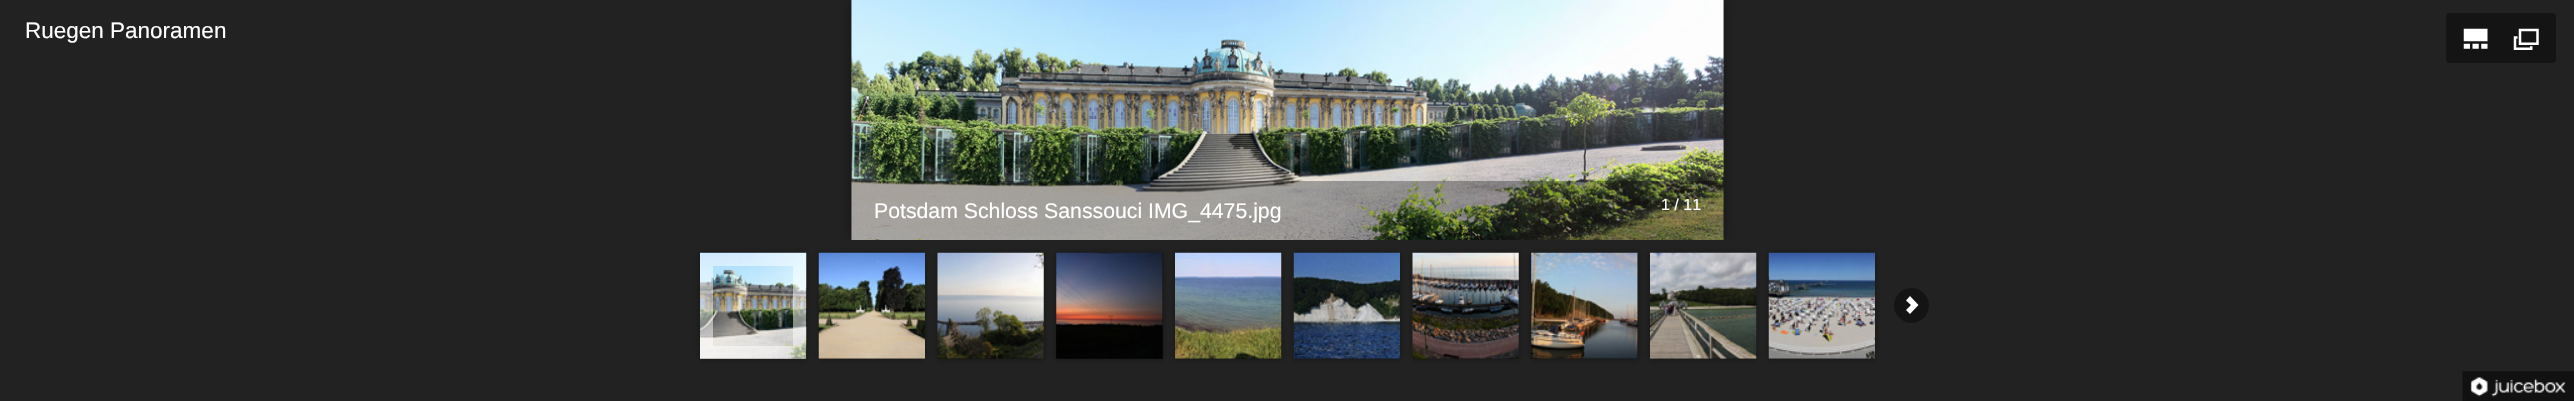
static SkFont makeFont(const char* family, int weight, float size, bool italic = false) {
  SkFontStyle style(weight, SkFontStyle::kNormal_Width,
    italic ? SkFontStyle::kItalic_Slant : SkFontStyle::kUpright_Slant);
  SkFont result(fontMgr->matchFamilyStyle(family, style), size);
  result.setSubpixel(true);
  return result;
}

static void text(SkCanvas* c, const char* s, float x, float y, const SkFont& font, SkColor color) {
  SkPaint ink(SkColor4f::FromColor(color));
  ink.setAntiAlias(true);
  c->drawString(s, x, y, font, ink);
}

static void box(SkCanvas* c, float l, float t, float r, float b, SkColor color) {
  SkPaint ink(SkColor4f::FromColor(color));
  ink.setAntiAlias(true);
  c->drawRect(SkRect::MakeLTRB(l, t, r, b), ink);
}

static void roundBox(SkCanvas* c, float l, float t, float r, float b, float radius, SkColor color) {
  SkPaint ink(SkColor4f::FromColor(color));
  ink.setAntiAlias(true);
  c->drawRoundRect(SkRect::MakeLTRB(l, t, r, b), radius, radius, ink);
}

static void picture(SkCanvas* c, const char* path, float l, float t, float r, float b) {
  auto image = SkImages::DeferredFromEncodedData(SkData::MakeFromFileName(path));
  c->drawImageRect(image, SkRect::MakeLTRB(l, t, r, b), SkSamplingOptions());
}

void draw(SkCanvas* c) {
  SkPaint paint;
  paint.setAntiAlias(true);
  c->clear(0xff222222);
  SkFont face1 = makeFont("Liberation Sans", 400, 22.5f);
  text(c, "Ruegen Panoramen", 25, 38, face1, 0xffffffff);
  c->save();
  c->clipRect(SkRect::MakeLTRB(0, 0, 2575, 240));
  paint.setColor(0x66000000);
  paint.setMaskFilter(SkMaskFilter::MakeBlur(kNormal_SkBlurStyle, 6));
  c->drawRect(SkRect::MakeLTRB(851, 0, 1724, 240), paint);
  paint.setMaskFilter(nullptr);
  c->restore();
  picture(c, "img_01.png", 851, 0, 1724, 240);
  roundBox(c, 2446, 13, 2556, 63, 4, 0xff141414);
  picture(c, "img_02.png", 2463, 28, 2488, 49);
  picture(c, "img_03.png", 2513, 28, 2539, 50);
  box(c, 851, 181, 1724, 240, 0x4d000000);
  SkFont face2 = makeFont("Liberation Sans", 400, 21.25f);
  text(c, "Potsdam Schloss Sanssouci IMG_4475.jpg", 874, 218, face2, 0xffffffff);
  SkFont face3 = makeFont("Liberation Sans", 400, 16);
  text(c, "1 / 11", 1661, 210, face3, 0xffffffff);
  paint.setMaskFilter(SkMaskFilter::MakeBlur(kNormal_SkBlurStyle, 3));
  c->drawRect(SkRect::MakeLTRB(700, 253, 806, 359), paint);
  paint.setMaskFilter(nullptr);
  box(c, 700, 358, 806, 359, 0xff111111);
  picture(c, "img_04.png", 700, 252, 807, 359);
  paint.setStyle(SkPaint::kStroke_Style);
  paint.setStrokeWidth(13);
  paint.setColor(0x80ffffff);
  c->drawRect(SkRect::MakeLTRB(706.5f, 259.5f, 799.5f, 352.5f), paint);
  paint.setStyle(SkPaint::kFill_Style);
  paint.setColor(0x66000000);
  paint.setMaskFilter(SkMaskFilter::MakeBlur(kNormal_SkBlurStyle, 3));
  c->drawRect(SkRect::MakeLTRB(819, 253, 925, 359), paint);
  paint.setMaskFilter(nullptr);
  box(c, 819, 358, 925, 359, 0xff111111);
  picture(c, "img_05.png", 818, 252, 925, 359);
  paint.setMaskFilter(SkMaskFilter::MakeBlur(kNormal_SkBlurStyle, 3));
  c->drawRect(SkRect::MakeLTRB(938, 253, 1044, 359), paint);
  paint.setMaskFilter(nullptr);
  box(c, 938, 253, 1044, 359, 0xff111111);
  picture(c, "img_06.png", 937, 252, 1044, 359);
  paint.setMaskFilter(SkMaskFilter::MakeBlur(kNormal_SkBlurStyle, 3));
  c->drawRect(SkRect::MakeLTRB(1056, 253, 1163, 359), paint);
  paint.setMaskFilter(nullptr);
  box(c, 1056, 253, 1163, 359, 0x80000000);
  picture(c, "img_07.png", 1056, 252, 1163, 359);
  paint.setMaskFilter(SkMaskFilter::MakeBlur(kNormal_SkBlurStyle, 3));
  c->drawRect(SkRect::MakeLTRB(1175, 253, 1281, 359), paint);
  paint.setMaskFilter(nullptr);
  box(c, 1175, 358, 1281, 359, 0xff111111);
  picture(c, "img_08.png", 1175, 252, 1282, 359);
  paint.setMaskFilter(SkMaskFilter::MakeBlur(kNormal_SkBlurStyle, 3));
  c->drawRect(SkRect::MakeLTRB(1294, 253, 1400, 359), paint);
  paint.setMaskFilter(nullptr);
  box(c, 1294, 358, 1400, 359, 0xff111111);
  picture(c, "img_09.png", 1293, 252, 1400, 359);
  paint.setMaskFilter(SkMaskFilter::MakeBlur(kNormal_SkBlurStyle, 3));
  c->drawRect(SkRect::MakeLTRB(1413, 253, 1519, 359), paint);
  paint.setMaskFilter(nullptr);
  box(c, 1413, 253, 1519, 359, 0xff111111);
  picture(c, "img_10.png", 1412, 252, 1519, 359);
  paint.setMaskFilter(SkMaskFilter::MakeBlur(kNormal_SkBlurStyle, 3));
  c->drawRect(SkRect::MakeLTRB(1531, 253, 1638, 359), paint);
  paint.setMaskFilter(nullptr);
  box(c, 1531, 253, 1638, 359, 0x80000000);
  picture(c, "img_11.png", 1531, 252, 1638, 359);
  paint.setMaskFilter(SkMaskFilter::MakeBlur(kNormal_SkBlurStyle, 3));
  c->drawRect(SkRect::MakeLTRB(1650, 253, 1756, 359), paint);
  paint.setMaskFilter(nullptr);
  box(c, 1650, 358, 1756, 359, 0xff111111);
  picture(c, "img_12.png", 1650, 252, 1757, 359);
  paint.setMaskFilter(SkMaskFilter::MakeBlur(kNormal_SkBlurStyle, 3));
  c->drawRect(SkRect::MakeLTRB(1769, 253, 1875, 359), paint);
  paint.setMaskFilter(nullptr);
  box(c, 1769, 358, 1875, 359, 0xff111111);
  picture(c, "img_13.png", 1768, 252, 1875, 359);
  paint.setColor(0xff141414);
  c->drawCircle(1911.5f, 305.5f, 17.5f, paint);
  paint.setColor(0xffffffff);
  c->drawPath(SkPathBuilder().moveTo(1906, 310).lineTo(1910, 314).lineTo(1918.5f, 305).lineTo(1910, 296).lineTo(1906, 300.5f).lineTo(1911, 305).close().detach(), paint);
  picture(c, "img_14.png", 2462, 371, 2574, 401);
}
